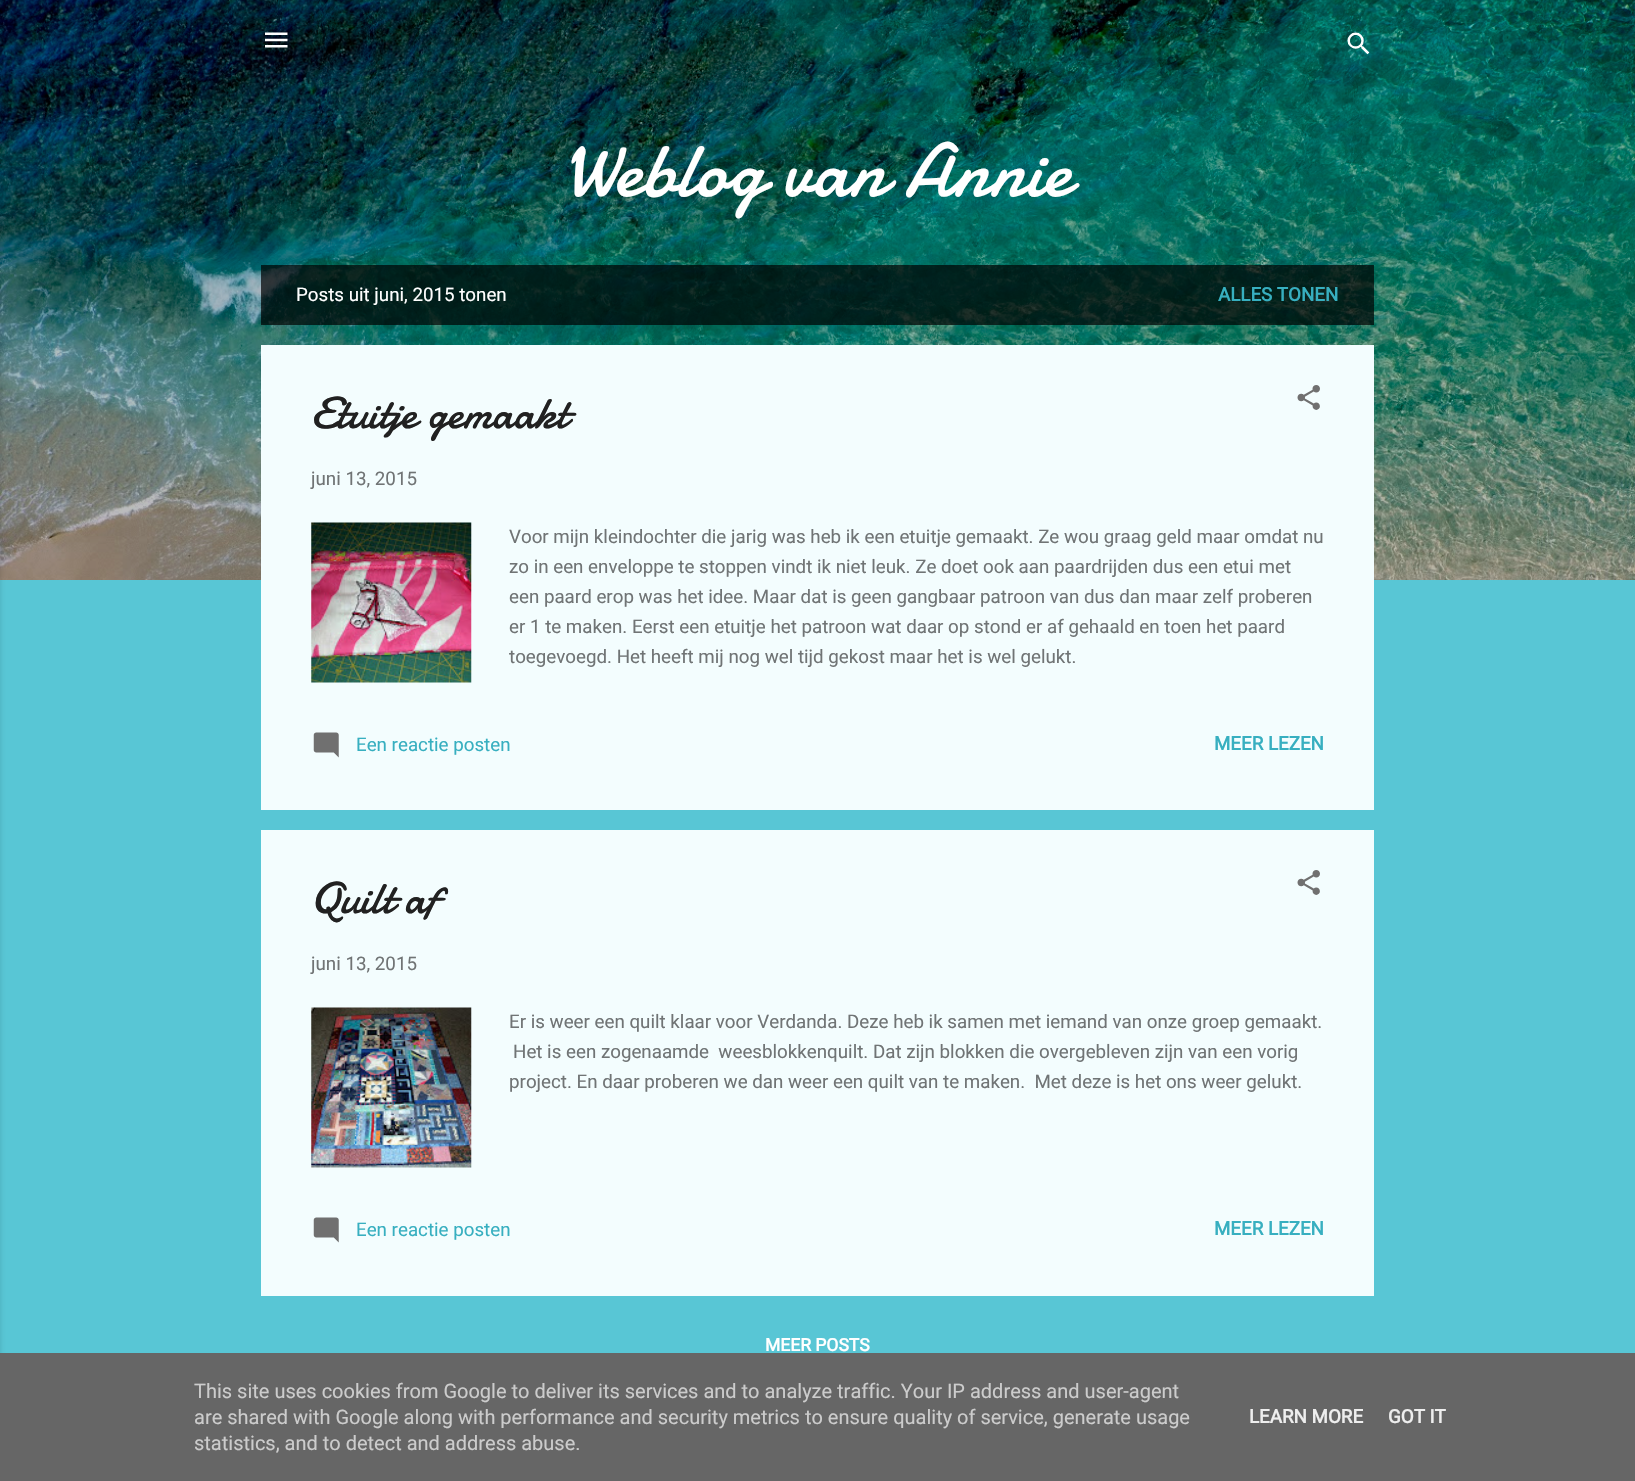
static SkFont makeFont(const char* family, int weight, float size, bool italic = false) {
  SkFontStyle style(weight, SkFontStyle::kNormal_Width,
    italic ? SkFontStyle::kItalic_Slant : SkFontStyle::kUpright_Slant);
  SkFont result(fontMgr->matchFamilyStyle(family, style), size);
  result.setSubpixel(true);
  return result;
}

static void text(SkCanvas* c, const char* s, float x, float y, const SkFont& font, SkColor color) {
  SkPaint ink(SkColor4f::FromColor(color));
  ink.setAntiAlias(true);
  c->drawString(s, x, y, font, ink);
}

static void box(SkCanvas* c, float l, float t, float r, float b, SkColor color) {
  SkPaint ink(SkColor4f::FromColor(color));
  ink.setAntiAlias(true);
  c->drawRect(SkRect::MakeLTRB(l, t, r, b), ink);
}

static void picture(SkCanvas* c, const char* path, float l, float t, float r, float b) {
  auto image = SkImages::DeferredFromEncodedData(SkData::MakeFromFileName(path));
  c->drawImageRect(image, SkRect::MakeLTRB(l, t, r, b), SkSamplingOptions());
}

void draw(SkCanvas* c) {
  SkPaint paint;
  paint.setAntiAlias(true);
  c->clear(0xff58c6d5);
  picture(c, "img_01.png", 0, 0, 1635, 580);
  paint.setColor(0x1a000000);
  paint.setMaskFilter(SkMaskFilter::MakeBlur(kNormal_SkBlurStyle, 2));
  c->drawRect(SkRect::MakeLTRB(-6, 1, 1, 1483), paint);
  paint.setMaskFilter(nullptr);
  picture(c, "img_02.png", 265, 32, 288, 48);
  picture(c, "img_03.png", 1347, 32, 1370, 55);
  SkFont face1 = makeFont("Damion", 400, 77.5f);
  text(c, "Weblog van Annie", 564, 196, face1, 0xffffffff);
  box(c, 261, 265, 1374, 325, 0xb3000000);
  SkFont face2 = makeFont("Roboto", 400, 18.75f);
  text(c, "Posts uit juni, 2015 tonen", 296, 301, face2, 0xffffffff);
  SkFont face3 = makeFont("Roboto", 700, 18.75f);
  text(c, "ALLES TONEN", 1218, 301, face3, 0xff37afc0);
  box(c, 261, 345, 1374, 810, 0xfff3fdfe);
  SkFont face4 = makeFont("Damion", 400, 45);
  text(c, "Etuitje gemaakt", 311, 428, face4, 0xff212121);
  picture(c, "img_04.png", 1297, 385, 1320, 410);
  text(c, "juni 13, 2015", 311, 485, face2, 0xff707475);
  picture(c, "img_05.png", 311, 522, 472, 683);
  text(c, "Voor mijn kleindochter die jarig was heb ik een etuitje gemaakt. Ze wou graag geld maar omdat nu", 509, 543, face2, 0xff707475);
  text(c, "zo in een enveloppe te stoppen vindt ik niet leuk. Ze doet ook aan paardrijden dus een etui met", 509, 573, face2, 0xff707475);
  text(c, "een paard erop was het idee. Maar dat is geen gangbaar patroon van dus dan maar zelf proberen", 509, 603, face2, 0xff707475);
  text(c, "er 1 te maken. Eerst een etuitje het patroon wat daar op stond er af gehaald en toen het paard", 509, 633, face2, 0xff707475);
  text(c, "toegevoegd. Het heeft mij nog wel tijd gekost maar het is wel gelukt.", 509, 663, face2, 0xff707475);
  picture(c, "img_06.png", 313, 732, 339, 758);
  text(c, "Een reactie posten", 356, 751, face2, 0xff37afc0);
  text(c, "MEER LEZEN", 1214, 750, face3, 0xff37afc0);
  box(c, 261, 830, 1374, 1296, 0xfff3fdfe);
  text(c, "Quilt af", 311, 913, face4, 0xff212121);
  picture(c, "img_04.png", 1297, 870, 1320, 895);
  text(c, "juni 13, 2015", 311, 970, face2, 0xff707475);
  picture(c, "img_07.png", 311, 1007, 472, 1168);
  text(c, "Er is weer een quilt klaar voor Verdanda. Deze heb ik samen met iemand van onze groep gemaakt.", 509, 1028, face2, 0xff707475);
  text(c, "Het is een zogenaamde  weesblokkenquilt. Dat zijn blokken die overgebleven zijn van een vorig", 513, 1058, face2, 0xff707475);
  text(c, "project. En daar proberen we dan weer een quilt van te maken.  Met deze is het ons weer gelukt.", 509, 1088, face2, 0xff707475);
  picture(c, "img_08.png", 313, 1217, 339, 1243);
  text(c, "Een reactie posten", 356, 1236, face2, 0xff37afc0);
  text(c, "MEER LEZEN", 1214, 1235, face3, 0xff37afc0);
  SkFont face5 = makeFont("Roboto", 700, 17.5f);
  text(c, "MEER POSTS", 765, 1351, face5, 0xffffffff);
  box(c, 0, 1353, 1635, 1481, 0xff666666);
  SkFont face6 = makeFont("Roboto", 400, 20);
  text(c, "This site uses cookies from Google to deliver its services and to analyze traffic. Your IP address and user-agent", 194, 1398, face6, 0xffcccccc);
  text(c, "are shared with Google along with performance and security metrics to ensure quality of service, generate usage", 194, 1424, face6, 0xffcccccc);
  text(c, "statistics, and to detect and address abuse.", 194, 1450, face6, 0xffcccccc);
  text(c, "LEARN MORE", 1249, 1423, face3, 0xffeeeeee);
  text(c, "GOT IT", 1388, 1423, face3, 0xffeeeeee);
}
